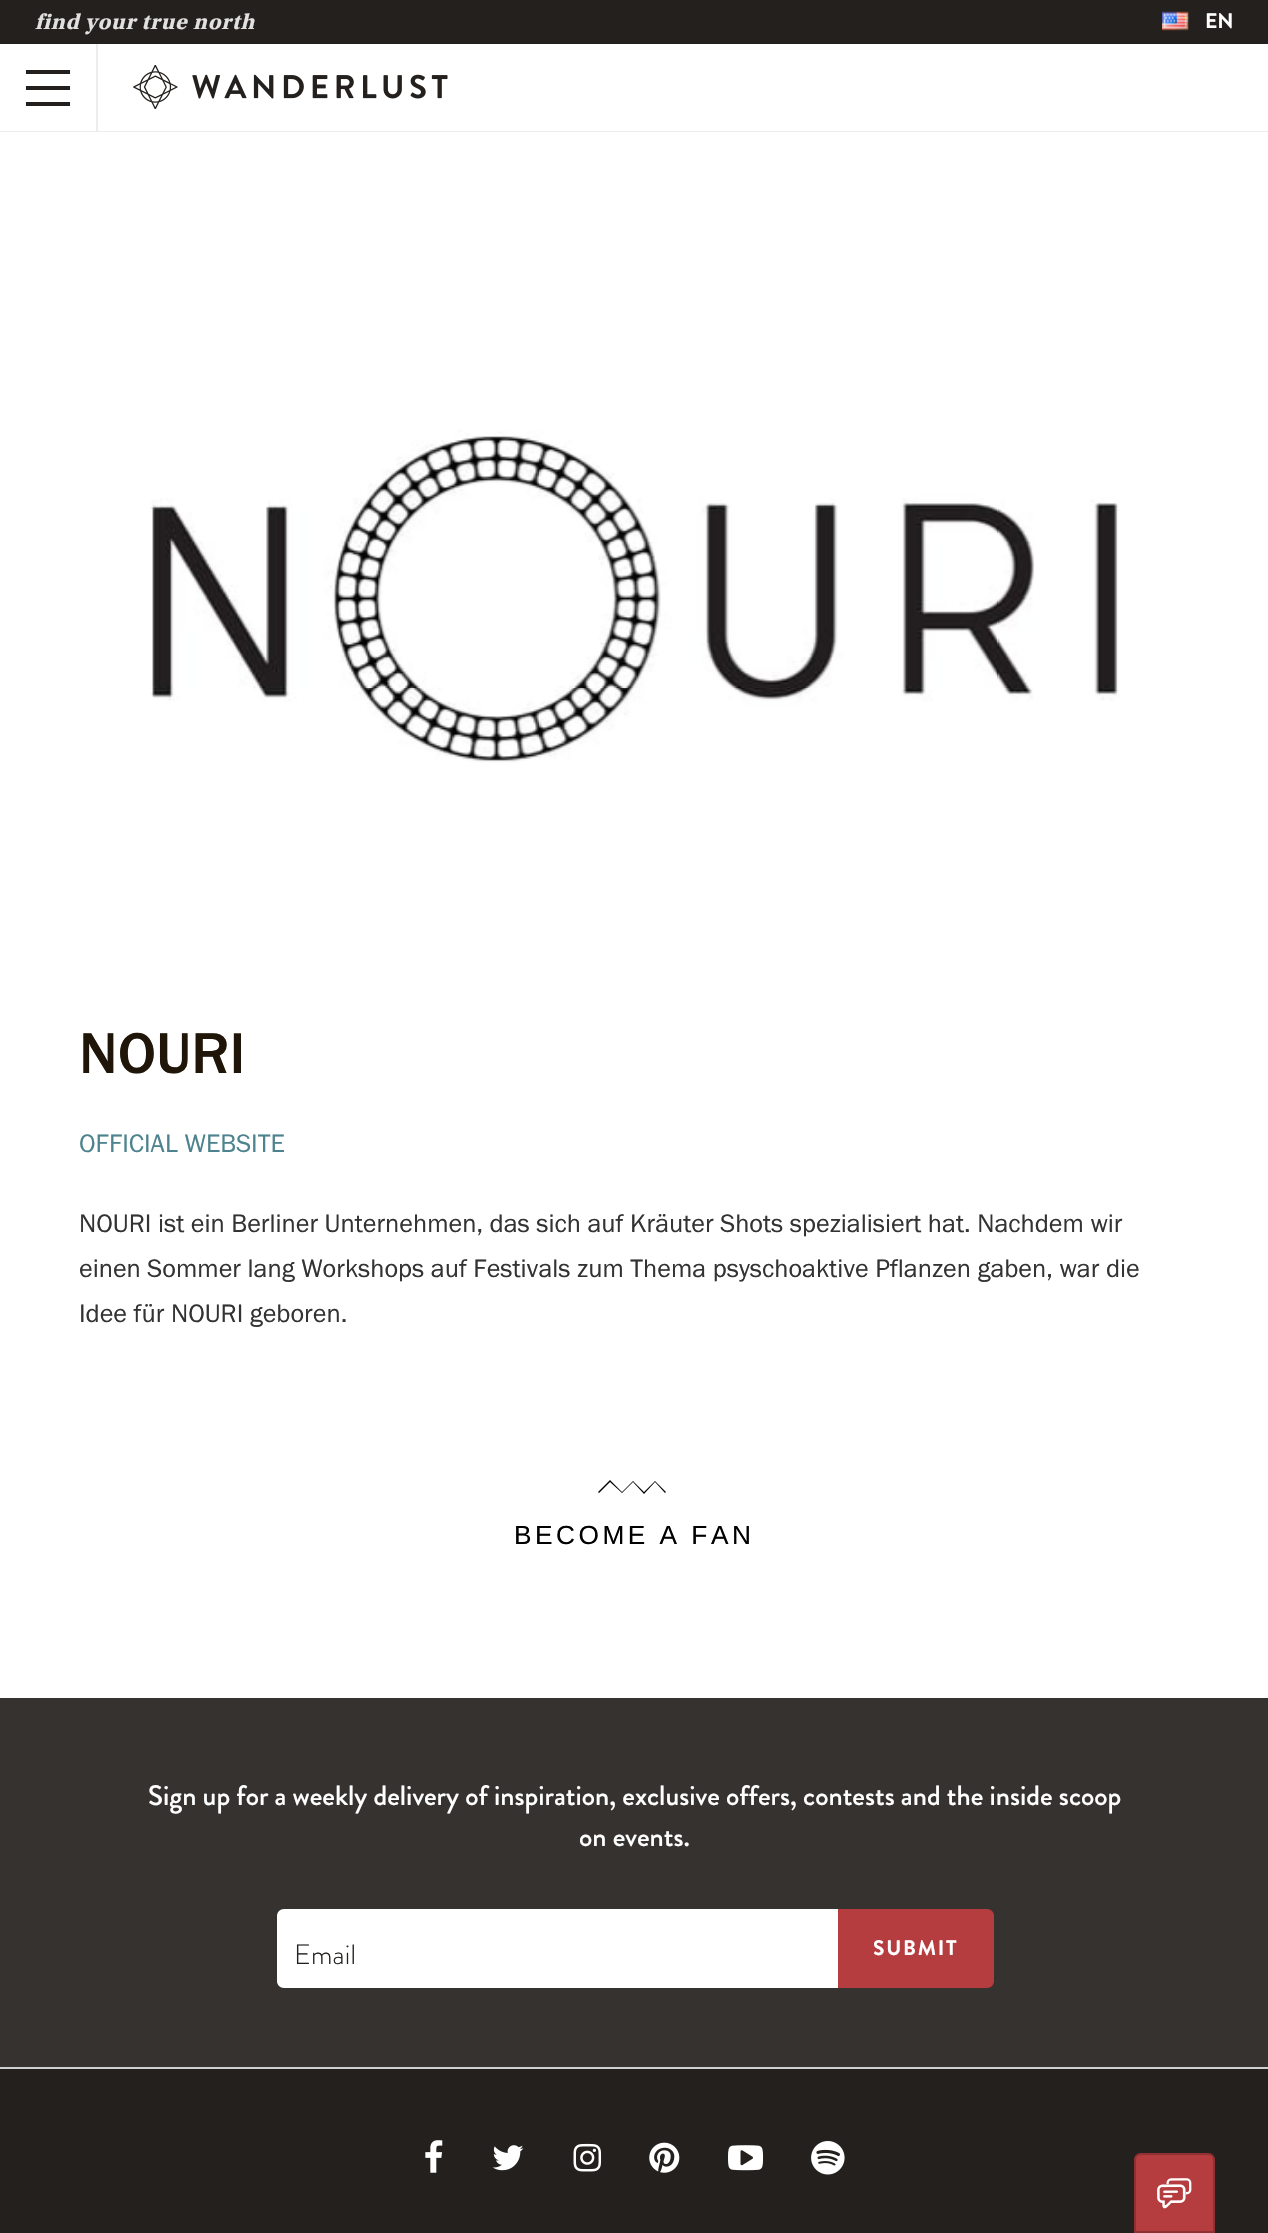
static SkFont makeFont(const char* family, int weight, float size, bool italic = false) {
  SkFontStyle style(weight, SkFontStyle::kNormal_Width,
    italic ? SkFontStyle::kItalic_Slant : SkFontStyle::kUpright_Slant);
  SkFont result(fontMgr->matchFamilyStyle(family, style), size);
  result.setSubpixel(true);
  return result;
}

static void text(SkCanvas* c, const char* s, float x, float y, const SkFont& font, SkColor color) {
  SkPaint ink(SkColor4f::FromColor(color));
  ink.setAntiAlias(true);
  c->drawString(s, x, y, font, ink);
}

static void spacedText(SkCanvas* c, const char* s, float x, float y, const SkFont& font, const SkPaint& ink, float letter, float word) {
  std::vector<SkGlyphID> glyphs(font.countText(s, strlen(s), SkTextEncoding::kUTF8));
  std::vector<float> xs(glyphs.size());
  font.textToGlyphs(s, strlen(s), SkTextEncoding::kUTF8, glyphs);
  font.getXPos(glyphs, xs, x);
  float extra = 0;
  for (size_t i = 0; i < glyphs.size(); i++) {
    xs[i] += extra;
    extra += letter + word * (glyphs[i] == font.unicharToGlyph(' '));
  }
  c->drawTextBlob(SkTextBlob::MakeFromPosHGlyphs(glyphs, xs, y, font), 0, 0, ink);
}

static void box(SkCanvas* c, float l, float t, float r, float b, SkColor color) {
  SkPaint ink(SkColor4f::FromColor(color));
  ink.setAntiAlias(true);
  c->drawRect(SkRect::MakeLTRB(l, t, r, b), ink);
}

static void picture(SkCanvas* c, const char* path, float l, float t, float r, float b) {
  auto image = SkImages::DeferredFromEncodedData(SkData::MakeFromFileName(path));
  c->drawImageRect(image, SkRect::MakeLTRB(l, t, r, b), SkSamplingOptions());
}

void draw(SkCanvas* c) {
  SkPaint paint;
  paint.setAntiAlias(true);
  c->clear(0xffffffff);
  box(c, 0, 0, 1268, 44, 0xff23201d);
  SkFont face1 = makeFont("Utopia", 700, 22.75f, true);
  paint.setColor(0xffe1e1e1);
  spacedText(c, "find your true north", 35, 29, face1, paint, 0.9f, 0);
  picture(c, "img_01.png", 1162, 11, 1189, 31);
  SkFont face2 = makeFont("Brandon Grotesque", 700, 21);
  text(c, "EN", 1205, 28, face2, 0xffffffff);
  box(c, 0, 131, 1268, 132, 0xffececeb);
  box(c, 96, 44, 98, 131, 0xffececeb);
  box(c, 26, 70, 70, 74, 0xff23201d);
  box(c, 26, 86, 70, 90, 0xff23201d);
  box(c, 26, 102, 70, 106, 0xff23201d);
  picture(c, "img_02.png", 133, 65, 448, 109);
  picture(c, "img_03.png", 150, 430, 1120, 763);
  SkFont face3 = makeFont("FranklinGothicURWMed", 400, 59.5f);
  text(c, "NOURI", 79, 1073, face3, 0xff1f1508);
  SkFont face4 = makeFont("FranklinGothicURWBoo", 400, 26.25f);
  text(c, "OFFICIAL WEBSITE", 79, 1152, face4, 0xff4d838e);
  text(c, "NOURI ist ein Berliner Unternehmen, das sich auf Kräuter Shots spezialisiert hat. Nachdem wir", 79, 1232, face4, 0xff333333);
  text(c, "einen Sommer lang Workshops auf Festivals zum Thema psyschoaktive Pflanzen gaben, war die", 79, 1277, face4, 0xff333333);
  text(c, "Idee für NOURI geboren.", 79, 1322, face4, 0xff333333);
  paint.setColor(0xff000000);
  c->drawPath(SkPathBuilder().moveTo(644, 1494).lineTo(633, 1482).lineTo(622, 1493).lineTo(610, 1482).lineTo(599, 1493).lineTo(598, 1492).lineTo(610, 1480).lineTo(622, 1492).lineTo(633, 1481).lineTo(644, 1492).lineTo(655, 1481).lineTo(666, 1492).lineTo(665, 1493).lineTo(655, 1482).close().detach(), paint);
  SkFont face5 = makeFont("Liberation Sans", 400, 26.25f);
  spacedText(c, "BECOME A FAN", 514, 1544, face5, paint, 3.5f, 0);
  box(c, 0, 1698, 1268, 2067, 0xff353230);
  SkFont face6 = makeFont("Brandon Grotesque", 500, 28);
  text(c, "Sign up for a weekly delivery of inspiration, exclusive offers, contests and the inside scoop", 148, 1805, face6, 0xffffffff);
  text(c, "on events.", 579, 1846, face6, 0xffffffff);
  paint.setColor(0xffffffff);
  c->drawPath(SkPathBuilder().moveTo(284, 1909).lineTo(838, 1909).lineTo(838, 1988).lineTo(284, 1988).cubicTo(280, 1988, 277, 1985, 277, 1981).lineTo(277, 1916).cubicTo(277, 1912, 280, 1909, 284, 1909).close().detach(), paint);
  SkFont face7 = makeFont("Brandon Grotesque", 300, 28);
  paint.setColor(0xff23201d);
  spacedText(c, "Email", 294, 1964, face7, paint, 0.25f, 0);
  paint.setColor(0xffb53c3f);
  c->drawPath(SkPathBuilder().moveTo(838, 1909).lineTo(987, 1909).cubicTo(991, 1909, 994, 1912, 994, 1916).lineTo(994, 1981).cubicTo(994, 1985, 991, 1988, 987, 1988).lineTo(838, 1988).close().detach(), paint);
  paint.setColor(0xffffffff);
  spacedText(c, "SUBMIT", 873, 1955, face2, paint, 1.75f, 0);
  box(c, 0, 2069, 1268, 2233, 0xff23201d);
  box(c, 0, 2067, 1268, 2069, 0xffd0d0d0);
  picture(c, "img_04.png", 425, 2140, 443, 2173);
  picture(c, "img_05.png", 492, 2145, 524, 2171);
  picture(c, "img_06.png", 573, 2143, 602, 2172);
  picture(c, "img_07.png", 649, 2142, 680, 2173);
  picture(c, "img_08.png", 728, 2145, 764, 2171);
  picture(c, "img_09.png", 811, 2141, 845, 2175);
  paint.setColor(0xffb53c3f);
  c->drawPath(SkPathBuilder().moveTo(1141, 2153).lineTo(1208, 2153).cubicTo(1212, 2153, 1215, 2156, 1215, 2160).lineTo(1215, 2233).lineTo(1134, 2233).lineTo(1134, 2160).cubicTo(1134, 2156, 1137, 2153, 1141, 2153).close().detach(), paint);
  picture(c, "img_10.png", 1157, 2178, 1192, 2209);
  paint.setStyle(SkPaint::kStroke_Style);
  paint.setStrokeWidth(2);
  paint.setColor(0x33000000);
  c->drawPath(SkPathBuilder().moveTo(1141, 2154).lineTo(1208, 2154).cubicTo(1211.5f, 2154, 1214, 2156.5f, 1214, 2160).lineTo(1214, 2232).lineTo(1135, 2232).lineTo(1135, 2160).cubicTo(1135, 2156.5f, 1137.5f, 2154, 1141, 2154).close().detach(), paint);
}
